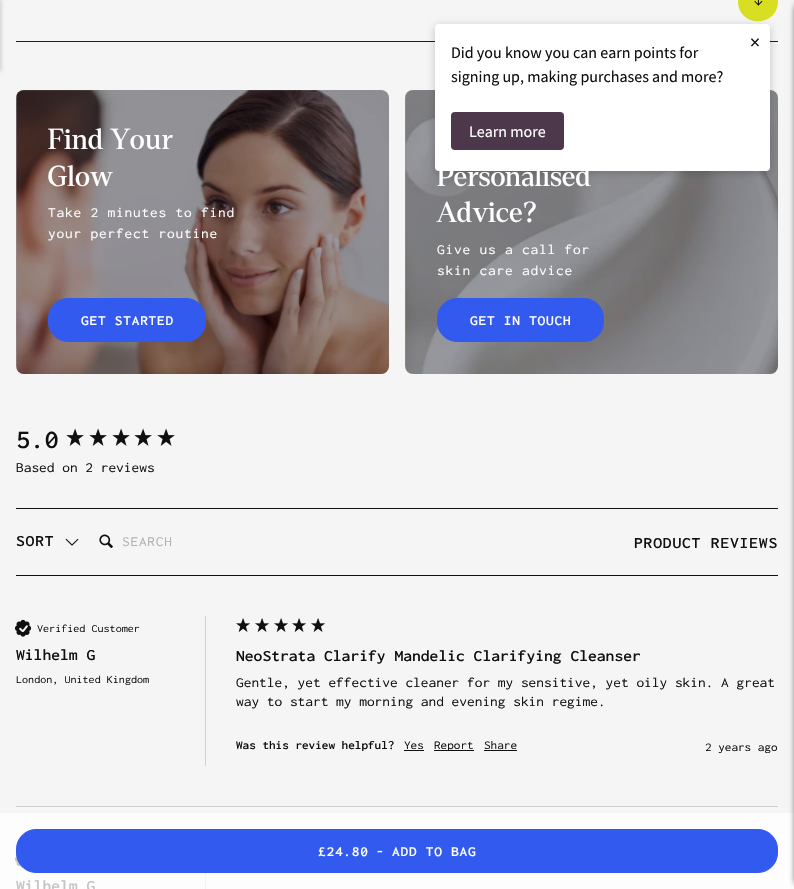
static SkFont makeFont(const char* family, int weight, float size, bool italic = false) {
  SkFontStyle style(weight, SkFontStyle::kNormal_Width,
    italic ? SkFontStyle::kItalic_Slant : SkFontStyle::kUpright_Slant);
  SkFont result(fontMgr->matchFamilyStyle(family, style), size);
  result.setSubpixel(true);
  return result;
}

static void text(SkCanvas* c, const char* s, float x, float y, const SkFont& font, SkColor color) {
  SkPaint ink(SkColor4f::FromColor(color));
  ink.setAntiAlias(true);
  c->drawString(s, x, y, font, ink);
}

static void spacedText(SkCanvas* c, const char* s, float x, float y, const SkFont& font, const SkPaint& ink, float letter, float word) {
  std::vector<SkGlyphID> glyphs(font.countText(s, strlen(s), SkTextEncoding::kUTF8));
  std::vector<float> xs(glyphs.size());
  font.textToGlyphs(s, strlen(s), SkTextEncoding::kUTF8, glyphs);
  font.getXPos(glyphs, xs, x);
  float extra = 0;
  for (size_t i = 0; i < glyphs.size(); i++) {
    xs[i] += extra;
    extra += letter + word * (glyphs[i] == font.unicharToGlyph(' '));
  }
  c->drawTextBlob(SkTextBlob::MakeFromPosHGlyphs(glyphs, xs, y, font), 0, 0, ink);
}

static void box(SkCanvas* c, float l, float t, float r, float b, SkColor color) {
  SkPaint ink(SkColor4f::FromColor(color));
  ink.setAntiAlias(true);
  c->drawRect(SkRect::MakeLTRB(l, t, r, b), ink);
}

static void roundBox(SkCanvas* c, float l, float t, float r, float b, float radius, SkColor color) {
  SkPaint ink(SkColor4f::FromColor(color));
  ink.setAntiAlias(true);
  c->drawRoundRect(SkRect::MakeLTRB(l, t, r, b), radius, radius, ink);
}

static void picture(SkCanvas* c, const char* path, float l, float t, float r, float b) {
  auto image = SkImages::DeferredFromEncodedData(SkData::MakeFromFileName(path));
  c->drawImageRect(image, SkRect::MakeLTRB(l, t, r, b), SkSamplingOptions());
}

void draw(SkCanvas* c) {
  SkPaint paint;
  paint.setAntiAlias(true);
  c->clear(0xfff5f5f5);
  paint.setColor(0x40000000);
  paint.setMaskFilter(SkMaskFilter::MakeBlur(kNormal_SkBlurStyle, 2.5f));
  c->drawRect(SkRect::MakeLTRB(-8, -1, 0, 71), paint);
  paint.setMaskFilter(nullptr);
  box(c, 0, 813, 794, 889, 0xfffdfdfd);
  paint.setMaskFilter(SkMaskFilter::MakeBlur(kNormal_SkBlurStyle, 2.5f));
  c->drawRoundRect(SkRect::MakeLTRB(794, 0, 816, 889), 14, 14, paint);
  paint.setMaskFilter(nullptr);
  picture(c, "img_02.png", 405, 90, 778, 374);
  roundBox(c, 405, 90, 778, 374, 8, 0x66020614);
  box(c, 16, 41, 778, 42, 0xff002152);
  paint.setColor(0xffd8df23);
  c->drawPath(SkPathBuilder().moveTo(778, 1).cubicTo(778, 28, 738, 28, 738, 1).cubicTo(738, -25, 778, -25, 778, 1).close().detach(), paint);
  paint.setColor(0x33000000);
  paint.setMaskFilter(SkMaskFilter::MakeBlur(kNormal_SkBlurStyle, 4));
  c->drawRoundRect(SkRect::MakeLTRB(435, 26, 770, 173), 4, 4, paint);
  paint.setMaskFilter(nullptr);
  roundBox(c, 435, 24, 770, 171, 4, 0xffffffff);
  SkFont face1 = makeFont("Source Sans Pro", 400, 20);
  text(c, "×", 750, 49, face1, 0xff101010);
  SkFont face2 = makeFont("Source Sans Pro", 400, 16);
  text(c, "Did you know you can earn points for", 451, 58, face2, 0xff101010);
  text(c, "signing up, making purchases and more?", 451, 82, face2, 0xff101010);
  roundBox(c, 451, 112, 564, 150, 4, 0xff4d384b);
  text(c, "Learn more", 469, 137, face2, 0xffffffff);
  paint.setColor(0x40000000);
  paint.setMaskFilter(SkMaskFilter::MakeBlur(kNormal_SkBlurStyle, 2.5f));
  c->drawRoundRect(SkRect::MakeLTRB(794, 0, 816, 889), 14, 14, paint);
  paint.setMaskFilter(nullptr);
  picture(c, "img_01.png", 16, 90, 389, 374);
  roundBox(c, 16, 90, 389, 374, 8, 0x66020614);
  SkFont face3 = makeFont("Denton", 400, 28);
  paint.setColor(0xffffffff);
  spacedText(c, "Find Your", 48, 149, face3, paint, 0.8f, 0);
  spacedText(c, "Glow", 48, 186, face3, paint, 0.8f, 0);
  SkFont face4 = makeFont("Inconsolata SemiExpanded", 400, 14);
  spacedText(c, "Take 2 minutes to find", 48, 217, face4, paint, 0.8f, 0);
  spacedText(c, "your perfect routine", 48, 238, face4, paint, 0.8f, 0);
  paint.setColor(0xff325aee);
  c->drawRoundRect(SkRect::MakeLTRB(48.5f, 298.5f, 205.5f, 341.5f), 19.5f, 19.5f, paint);
  paint.setStyle(SkPaint::kStroke_Style);
  paint.setStrokeWidth(1);
  c->drawRoundRect(SkRect::MakeLTRB(48.5f, 298.5f, 205.5f, 341.5f), 19.5f, 19.5f, paint);
  SkFont face5 = makeFont("Inconsolata SemiExpanded", 600, 14);
  paint.setStyle(SkPaint::kFill_Style);
  paint.setColor(0xffffffff);
  spacedText(c, "GET STARTED", 81, 325, face5, paint, 0.75f, 0);
  spacedText(c, "Personalised", 437, 186, face3, paint, 0.8f, 0);
  spacedText(c, "Advice?", 437, 222, face3, paint, 0.8f, 0);
  spacedText(c, "Give us a call for", 437, 254, face4, paint, 0.8f, 0);
  spacedText(c, "skin care advice", 437, 275, face4, paint, 0.8f, 0);
  paint.setColor(0xff325aee);
  c->drawRoundRect(SkRect::MakeLTRB(437.5f, 298.5f, 603.5f, 341.5f), 19.5f, 19.5f, paint);
  paint.setStyle(SkPaint::kStroke_Style);
  c->drawRoundRect(SkRect::MakeLTRB(437.5f, 298.5f, 603.5f, 341.5f), 19.5f, 19.5f, paint);
  paint.setStyle(SkPaint::kFill_Style);
  paint.setColor(0xffffffff);
  spacedText(c, "GET IN TOUCH", 470, 325, face5, paint, 0.75f, 0);
  box(c, 16, 508, 778, 509, 0xff101010);
  SkFont face6 = makeFont("Inconsolata SemiExpanded", 600, 26);
  text(c, "5.0", 16, 448, face6, 0xff101010);
  picture(c, "img_03.png", 66, 428, 84, 446);
  picture(c, "img_03.png", 89, 428, 107, 446);
  picture(c, "img_03.png", 112, 428, 130, 446);
  picture(c, "img_03.png", 134, 428, 152, 446);
  picture(c, "img_03.png", 157, 428, 175, 446);
  text(c, "Based on 2 reviews", 16, 472, face4, 0xff101010);
  box(c, 16, 575, 778, 576, 0xff101010);
  SkFont face7 = makeFont("Inconsolata SemiExpanded", 600, 16);
  paint.setColor(0xff101010);
  spacedText(c, "SORT", 16, 546, face7, paint, 0.8f, 0);
  picture(c, "img_04.png", 65, 538, 79, 546);
  picture(c, "img_05.png", 99, 534, 113, 548);
  paint.setColor(0xffb0b0b0);
  spacedText(c, "SEARCH", 122, 546, face4, paint, 0.75f, 0);
  paint.setColor(0xff101010);
  spacedText(c, "PRODUCT REVIEWS", 634, 548, face7, paint, 0.8f, 0);
  box(c, 16, 806, 778, 807, 0xffd0d0d0);
  box(c, 205, 616, 206, 766, 0xffd0d0d0);
  picture(c, "img_06.png", 14, 619, 32, 637);
  SkFont face8 = makeFont("Inconsolata SemiExpanded", 400, 11);
  text(c, "Verified Customer", 37, 632, face8, 0xff101010);
  text(c, "Wilhelm G", 16, 660, face7, 0xff101010);
  text(c, "London, United Kingdom", 16, 683, face8, 0xff101010);
  picture(c, "img_07.png", 236, 618, 250, 632);
  picture(c, "img_07.png", 255, 618, 269, 632);
  picture(c, "img_07.png", 274, 618, 288, 632);
  picture(c, "img_07.png", 292, 618, 306, 632);
  picture(c, "img_07.png", 311, 618, 325, 632);
  text(c, "NeoStrata Clarify Mandelic Clarifying Cleanser", 236, 661, face7, 0xff101010);
  text(c, "Gentle, yet effective cleaner for my sensitive, yet oily skin. A great", 236, 687, face4, 0xff101010);
  text(c, "way to start my morning and evening skin regime.", 236, 706, face4, 0xff101010);
  SkFont face9 = makeFont("Inconsolata SemiExpanded", 600, 12);
  text(c, "Was this review helpful?", 236, 749, face9, 0xff101010);
  SkFont face10 = makeFont("Inconsolata SemiExpanded", 400, 12);
  text(c, "Yes", 404, 749, face10, 0xff101010);
  box(c, 404, 750, 424, 751, 0xff101010);
  box(c, 434, 750, 474, 751, 0xff101010);
  text(c, "Report", 434, 749, face10, 0xff101010);
  text(c, "Share", 484, 749, face10, 0xff101010);
  box(c, 484, 750, 517, 751, 0xff101010);
  text(c, "2 years ago", 705, 751, face10, 0xff101010);
  box(c, 205, 873, 206, 889, 0xfff3f3f3);
  picture(c, "img_08.png", 14, 853, 23, 868);
  text(c, "Wilhelm G", 16, 891, face7, 0xffc3c3c3);
  picture(c, "img_09.png", 754, 0, 763, 6);
  paint.setColor(0xff325aee);
  c->drawRoundRect(SkRect::MakeLTRB(16.5f, 829.5f, 777.5f, 872.5f), 19.5f, 19.5f, paint);
  paint.setStyle(SkPaint::kStroke_Style);
  c->drawRoundRect(SkRect::MakeLTRB(16.5f, 829.5f, 777.5f, 872.5f), 19.5f, 19.5f, paint);
  paint.setStyle(SkPaint::kFill_Style);
  paint.setColor(0xffffffff);
  spacedText(c, "£24.80", 318, 856, face5, paint, 0.75f, 0);
  spacedText(c, "-", 376, 856, face5, paint, 0.75f, 0);
  spacedText(c, "ADD TO BAG", 392, 856, face5, paint, 0.75f, 0);
}
